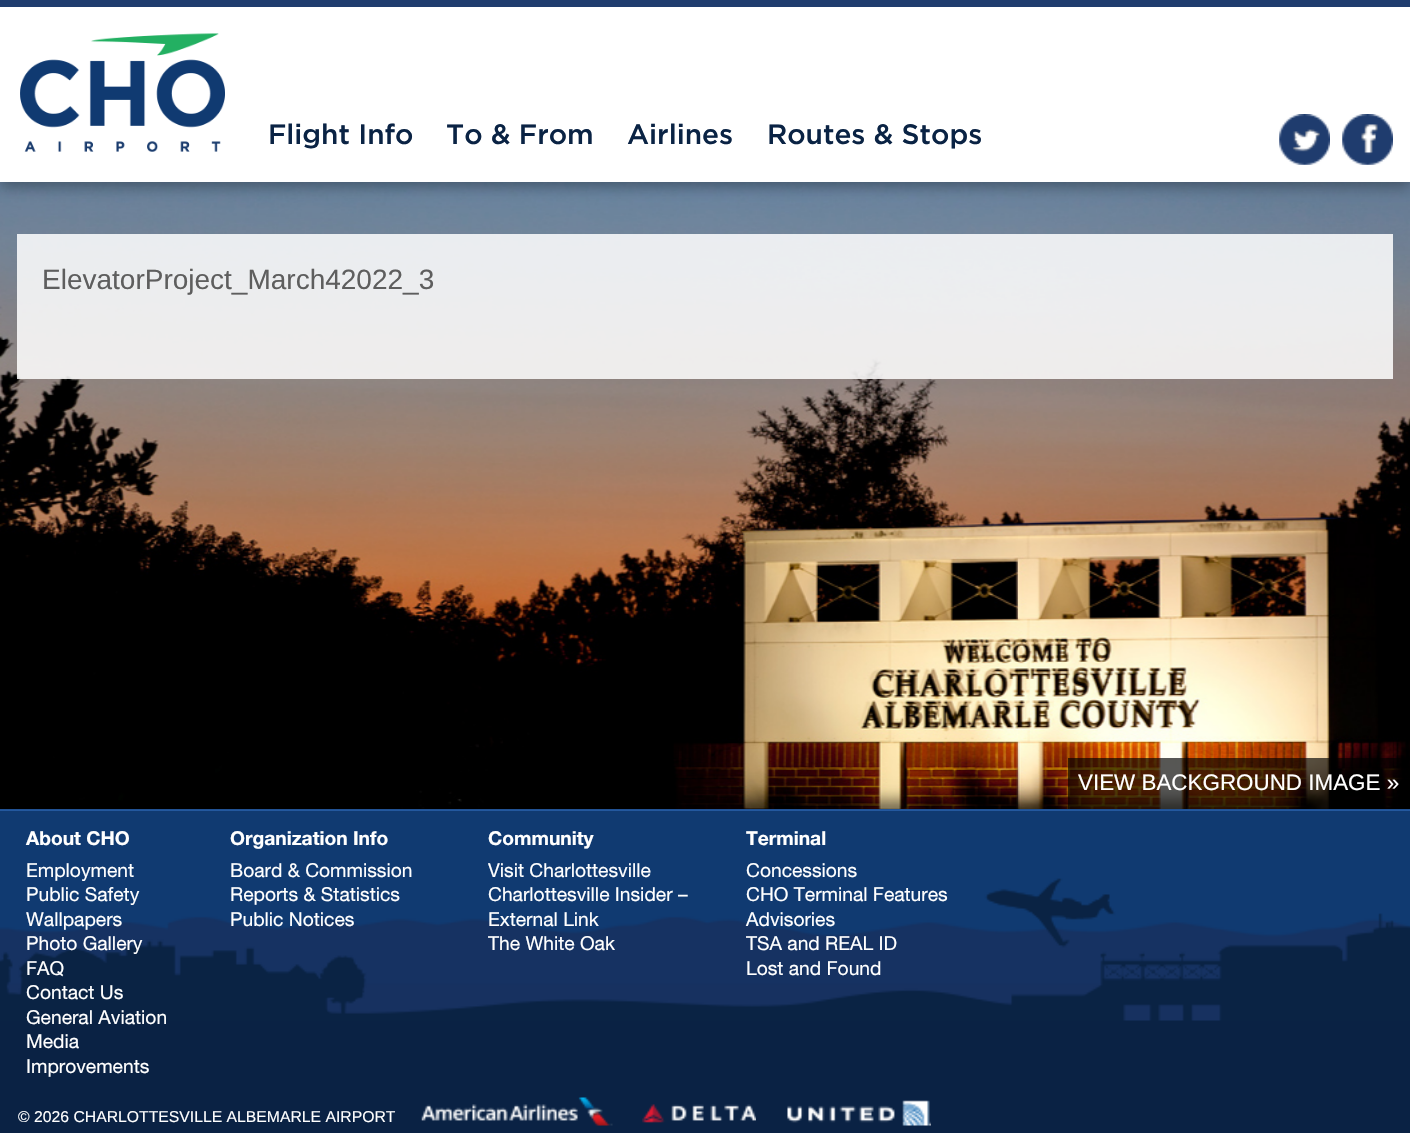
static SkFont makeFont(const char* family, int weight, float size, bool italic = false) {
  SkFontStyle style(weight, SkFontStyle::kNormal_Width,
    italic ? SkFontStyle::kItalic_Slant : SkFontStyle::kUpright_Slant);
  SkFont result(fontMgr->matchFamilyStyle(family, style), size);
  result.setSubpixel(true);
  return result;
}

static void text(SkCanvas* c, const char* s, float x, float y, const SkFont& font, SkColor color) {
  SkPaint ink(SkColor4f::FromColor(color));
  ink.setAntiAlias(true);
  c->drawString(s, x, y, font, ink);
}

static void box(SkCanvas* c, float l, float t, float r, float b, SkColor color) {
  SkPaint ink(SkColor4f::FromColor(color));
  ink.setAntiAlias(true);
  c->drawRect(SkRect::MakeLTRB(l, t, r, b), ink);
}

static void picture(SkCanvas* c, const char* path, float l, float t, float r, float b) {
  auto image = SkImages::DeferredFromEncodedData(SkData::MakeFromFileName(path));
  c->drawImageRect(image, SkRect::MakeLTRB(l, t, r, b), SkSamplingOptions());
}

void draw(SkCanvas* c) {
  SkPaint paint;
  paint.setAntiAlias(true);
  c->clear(0xffffffff);
  picture(c, "img_04.png", 0, 182, 1410, 809);
  paint.setColor(0x54000000);
  paint.setMaskFilter(SkMaskFilter::MakeBlur(kNormal_SkBlurStyle, 7));
  c->drawRect(SkRect::MakeLTRB(0, 0, 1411, 187), paint);
  paint.setMaskFilter(nullptr);
  box(c, 0, 7, 1410, 182, 0xffffffff);
  box(c, 0, 0, 1410, 7, 0xff1f3c6e);
  picture(c, "img_01.png", 20, 33, 225, 152);
  SkFont face1 = makeFont("gotham", 500, 28);
  text(c, "Flight Info", 268, 144, face1, 0xff0a2344);
  text(c, "To & From", 446, 144, face1, 0xff0a2344);
  text(c, "Airlines", 627, 144, face1, 0xff0a2344);
  text(c, "Routes & Stops", 767, 144, face1, 0xff0a2344);
  picture(c, "img_02.png", 1279, 114, 1330, 165);
  picture(c, "img_03.png", 1342, 114, 1393, 165);
  box(c, 17, 234, 1393, 379, 0xd9ffffff);
  SkFont face2 = makeFont("Liberation Sans", 400, 28);
  text(c, "ElevatorProject_March42022_3", 42, 289, face2, 0xff5e5e5e);
  paint.setColor(0x80000000);
  paint.setMaskFilter(SkMaskFilter::MakeBlur(kNormal_SkBlurStyle, 7));
  c->drawRect(SkRect::MakeLTRB(0, 800, 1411, 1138), paint);
  paint.setMaskFilter(nullptr);
  box(c, 0, 809, 1410, 1133, 0xff0a2244);
  picture(c, "img_05.png", 0, 810, 1410, 1021);
  box(c, 0, 809, 1410, 811, 0x803782e3);
  box(c, 1068, 758, 1403, 809, 0xa8000000);
  SkFont face3 = makeFont("Liberation Sans", 400, 22.4f);
  text(c, "VIEW BACKGROUND IMAGE »", 1078, 790, face3, 0xffffffff);
  SkFont face4 = makeFont("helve", 700, 19.25f);
  text(c, "About CHO", 26, 845, face4, 0xffffffff);
  SkFont face5 = makeFont("Helvetica", 400, 19.25f);
  text(c, "Employment", 26, 877, face5, 0xffffffff);
  text(c, "Public Safety", 26, 901, face5, 0xffffffff);
  text(c, "Wallpapers", 26, 926, face5, 0xffffffff);
  text(c, "Photo Gallery", 26, 950, face5, 0xffffffff);
  text(c, "FAQ", 26, 975, face5, 0xffffffff);
  text(c, "Contact Us", 26, 999, face5, 0xffffffff);
  text(c, "General Aviation", 26, 1024, face5, 0xffffffff);
  text(c, "Media", 26, 1048, face5, 0xffffffff);
  text(c, "Improvements", 26, 1073, face5, 0xffffffff);
  text(c, "Organization Info", 230, 845, face4, 0xffffffff);
  text(c, "Board & Commission", 230, 877, face5, 0xffffffff);
  text(c, "Reports & Statistics", 230, 901, face5, 0xffffffff);
  text(c, "Public Notices", 230, 926, face5, 0xffffffff);
  text(c, "Community", 488, 845, face4, 0xffffffff);
  text(c, "Visit Charlottesville", 488, 877, face5, 0xffffffff);
  text(c, "Charlottesville Insider –", 488, 901, face5, 0xffffffff);
  text(c, "External Link", 488, 926, face5, 0xffffffff);
  text(c, "The White Oak", 488, 950, face5, 0xffffffff);
  text(c, "Terminal", 746, 845, face4, 0xffffffff);
  text(c, "Concessions", 746, 877, face5, 0xffffffff);
  text(c, "CHO Terminal Features", 746, 901, face5, 0xffffffff);
  text(c, "Advisories", 746, 926, face5, 0xffffffff);
  text(c, "TSA and REAL ID", 746, 950, face5, 0xffffffff);
  text(c, "Lost and Found", 746, 975, face5, 0xffffffff);
  SkFont face6 = makeFont("Liberation Sans", 400, 15.75f);
  text(c, "© 2026 CHARLOTTESVILLE ALBEMARLE AIRPORT", 18, 1122, face6, 0xffffffff);
  picture(c, "img_06.png", 421, 1097, 613, 1126);
  picture(c, "img_07.png", 642, 1104, 756, 1123);
  picture(c, "img_08.png", 787, 1100, 931, 1126);
}
